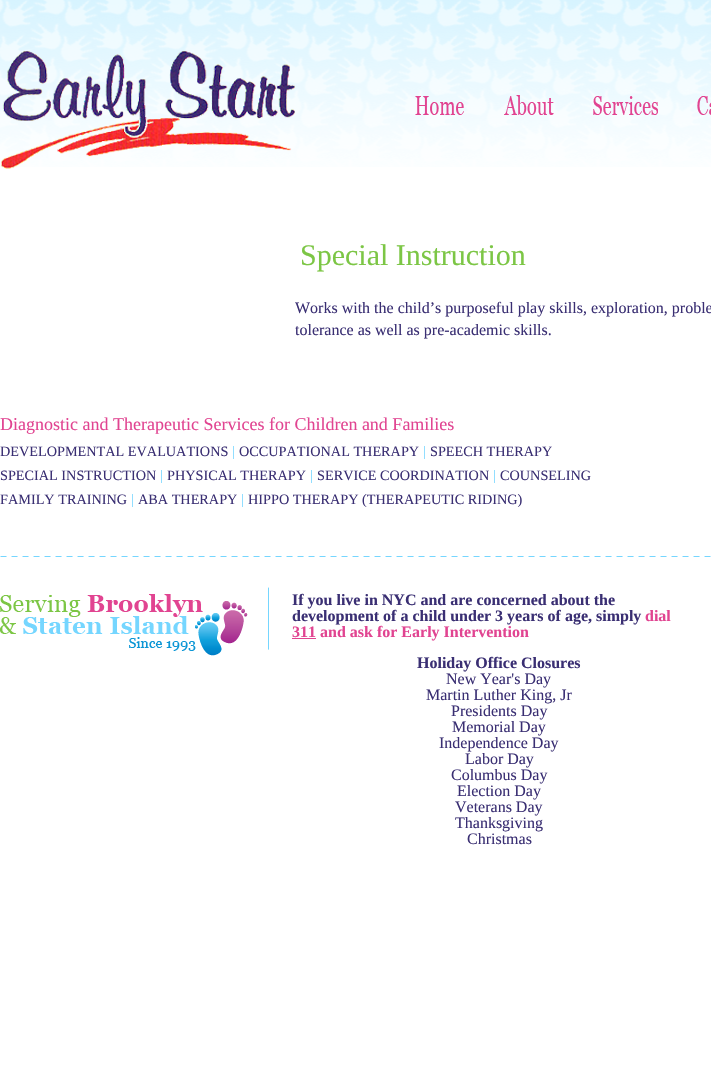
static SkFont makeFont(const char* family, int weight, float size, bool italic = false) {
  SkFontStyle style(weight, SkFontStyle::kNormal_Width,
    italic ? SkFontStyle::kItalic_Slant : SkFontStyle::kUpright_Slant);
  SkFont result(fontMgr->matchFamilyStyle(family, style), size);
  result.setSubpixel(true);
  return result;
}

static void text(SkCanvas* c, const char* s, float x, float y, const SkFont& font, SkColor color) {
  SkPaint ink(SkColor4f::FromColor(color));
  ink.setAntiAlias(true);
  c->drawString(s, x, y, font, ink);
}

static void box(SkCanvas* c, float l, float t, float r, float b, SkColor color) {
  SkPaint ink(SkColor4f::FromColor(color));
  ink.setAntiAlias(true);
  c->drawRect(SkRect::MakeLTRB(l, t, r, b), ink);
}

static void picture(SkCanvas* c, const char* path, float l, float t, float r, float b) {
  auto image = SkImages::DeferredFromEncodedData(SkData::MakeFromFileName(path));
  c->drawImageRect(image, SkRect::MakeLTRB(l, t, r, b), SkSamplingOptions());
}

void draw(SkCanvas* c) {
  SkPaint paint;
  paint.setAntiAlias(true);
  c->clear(0xffffffff);
  picture(c, "img_01.png", 0, 0, 711, 167);
  picture(c, "img_02.png", 1, 51, 295, 169);
  picture(c, "img_03.png", 415, 96, 464, 115);
  picture(c, "img_04.png", 504, 95, 554, 115);
  picture(c, "img_05.png", 593, 96, 658, 115);
  picture(c, "img_06.png", 697, 96, 711, 115);
  SkFont face1 = makeFont("Liberation Serif", 400, 30);
  text(c, "Special Instruction", 300, 265, face1, 0xff7cc645);
  SkFont face2 = makeFont("Liberation Serif", 400, 16);
  text(c, "Works with the child’s purposeful play skills, exploration, proble", 295, 313, face2, 0xff3a2f73);
  text(c, "tolerance as well as pre-academic skills.", 295, 335, face2, 0xff3a2f73);
  SkFont face3 = makeFont("Liberation Serif", 400, 18);
  text(c, "Diagnostic and Therapeutic Services for Children and Families", 0, 430, face3, 0xffe14491);
  SkFont face4 = makeFont("Liberation Serif", 400, 14.25f);
  text(c, "DEVELOPMENTAL EVALUATIONS", 0, 456, face4, 0xff3a2f73);
  text(c, "|", 232, 456, face4, 0xff75d6ff);
  text(c, "OCCUPATIONAL THERAPY", 239, 456, face4, 0xff3a2f73);
  text(c, "|", 423, 456, face4, 0xff75d6ff);
  text(c, "SPEECH THERAPY", 430, 456, face4, 0xff3a2f73);
  text(c, "SPECIAL INSTRUCTION", 0, 480, face4, 0xff3a2f73);
  text(c, "|", 160, 480, face4, 0xff75d6ff);
  text(c, "PHYSICAL THERAPY", 167, 480, face4, 0xff3a2f73);
  text(c, "|", 310, 480, face4, 0xff75d6ff);
  text(c, "SERVICE COORDINATION", 317, 480, face4, 0xff3a2f73);
  text(c, "|", 493, 480, face4, 0xff75d6ff);
  text(c, "COUNSELING", 500, 480, face4, 0xff3a2f73);
  text(c, "FAMILY TRAINING", 0, 504, face4, 0xff3a2f73);
  text(c, "|", 131, 504, face4, 0xff75d6ff);
  text(c, "ABA THERAPY", 138, 504, face4, 0xff3a2f73);
  text(c, "|", 241, 504, face4, 0xff75d6ff);
  text(c, "HIPPO THERAPY (THERAPEUTIC RIDING)", 248, 504, face4, 0xff3a2f73);
  picture(c, "img_07.png", 0, 556, 711, 557);
  picture(c, "img_08.png", 0, 587, 269, 656);
  SkFont face5 = makeFont("Liberation Serif", 700, 16);
  text(c, "If you live in NYC and are concerned about the", 292, 605, face5, 0xff3a2f73);
  text(c, "development of a child under 3 years of age, simply", 292, 621, face5, 0xff3a2f73);
  text(c, "dial", 645, 621, face5, 0xffe14491);
  box(c, 292, 638, 316, 639, 0xffe14491);
  text(c, "311 and ask for Early Intervention", 292, 637, face5, 0xffe14491);
  text(c, "Holiday Office Closures", 417, 668, face5, 0xff3a2f73);
  text(c, "New Year's Day", 446, 684, face2, 0xff3a2f73);
  text(c, "Martin Luther King, Jr", 426, 700, face2, 0xff3a2f73);
  text(c, "Presidents Day", 451, 716, face2, 0xff3a2f73);
  text(c, "Memorial Day", 452, 732, face2, 0xff3a2f73);
  text(c, "Independence Day", 439, 748, face2, 0xff3a2f73);
  text(c, "Labor Day", 465, 764, face2, 0xff3a2f73);
  text(c, "Columbus Day", 451, 780, face2, 0xff3a2f73);
  text(c, "Election Day", 457, 796, face2, 0xff3a2f73);
  text(c, "Veterans Day", 455, 812, face2, 0xff3a2f73);
  text(c, "Thanksgiving", 455, 828, face2, 0xff3a2f73);
  text(c, "Christmas", 467, 844, face2, 0xff3a2f73);
}
